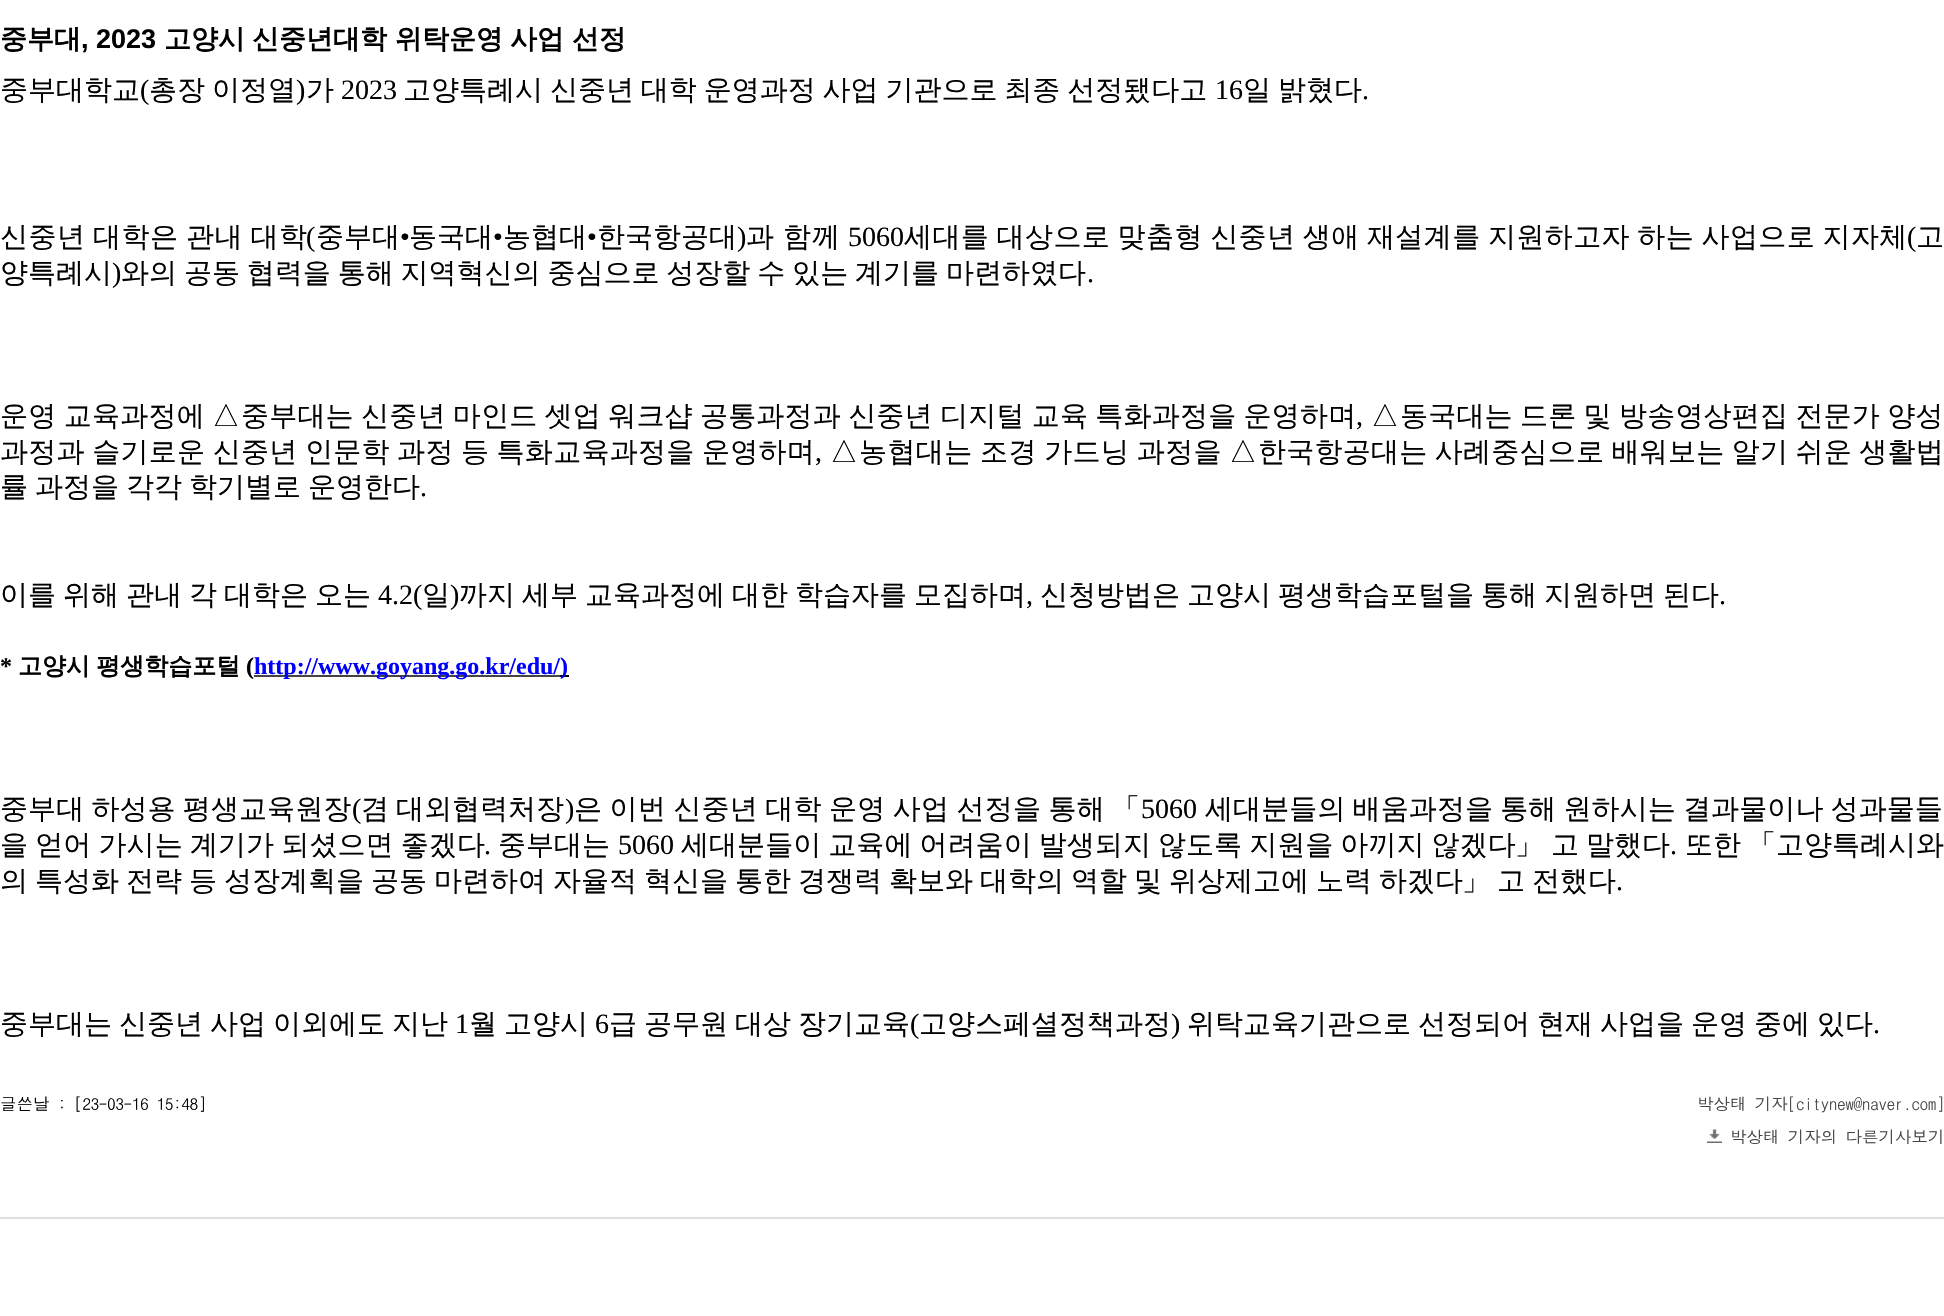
static SkFont makeFont(const char* family, int weight, float size, bool italic = false) {
  SkFontStyle style(weight, SkFontStyle::kNormal_Width,
    italic ? SkFontStyle::kItalic_Slant : SkFontStyle::kUpright_Slant);
  SkFont result(fontMgr->matchFamilyStyle(family, style), size);
  result.setSubpixel(true);
  return result;
}

static void text(SkCanvas* c, const char* s, float x, float y, const SkFont& font, SkColor color) {
  SkPaint ink(SkColor4f::FromColor(color));
  ink.setAntiAlias(true);
  c->drawString(s, x, y, font, ink);
}

static void spacedText(SkCanvas* c, const char* s, float x, float y, const SkFont& font, const SkPaint& ink, float letter, float word) {
  std::vector<SkGlyphID> glyphs(font.countText(s, strlen(s), SkTextEncoding::kUTF8));
  std::vector<float> xs(glyphs.size());
  font.textToGlyphs(s, strlen(s), SkTextEncoding::kUTF8, glyphs);
  font.getXPos(glyphs, xs, x);
  float extra = 0;
  for (size_t i = 0; i < glyphs.size(); i++) {
    xs[i] += extra;
    extra += letter + word * (glyphs[i] == font.unicharToGlyph(' '));
  }
  c->drawTextBlob(SkTextBlob::MakeFromPosHGlyphs(glyphs, xs, y, font), 0, 0, ink);
}

static void box(SkCanvas* c, float l, float t, float r, float b, SkColor color) {
  SkPaint ink(SkColor4f::FromColor(color));
  ink.setAntiAlias(true);
  c->drawRect(SkRect::MakeLTRB(l, t, r, b), ink);
}

static void picture(SkCanvas* c, const char* path, float l, float t, float r, float b) {
  auto image = SkImages::DeferredFromEncodedData(SkData::MakeFromFileName(path));
  c->drawImageRect(image, SkRect::MakeLTRB(l, t, r, b), SkSamplingOptions());
}

void draw(SkCanvas* c) {
  SkPaint paint;
  paint.setAntiAlias(true);
  c->clear(0xffffffff);
  box(c, 0, 1217, 1944, 1219, 0xffdedfde);
  SkFont face1 = makeFont("WenQuanYi Zen Hei", 700, 27);
  text(c, "중부대", 0, 48, face1, 0xff000000);
  SkFont face2 = makeFont("Liberation Sans", 700, 27);
  text(c, ", 2023", 81, 48, face2, 0xff000000);
  text(c, "고양시", 164, 48, face1, 0xff000000);
  text(c, "신중년대학", 252, 48, face1, 0xff000000);
  text(c, "위탁운영", 395, 48, face1, 0xff000000);
  text(c, "사업", 510, 48, face1, 0xff000000);
  text(c, "선정", 572, 48, face1, 0xff000000);
  SkFont face3 = makeFont("WenQuanYi Zen Hei", 500, 28);
  text(c, "중부대학교", 0, 99, face3, 0xff000000);
  SkFont face4 = makeFont("Liberation Serif", 400, 28);
  text(c, "(", 140, 99, face4, 0xff000000);
  paint.setColor(0xff000000);
  spacedText(c, "총장 이정열", 149, 99, face3, paint, 0, -1.4f);
  text(c, ")", 296, 99, face4, 0xff000000);
  text(c, "가", 306, 99, face3, 0xff000000);
  text(c, "2023", 341, 99, face4, 0xff000000);
  spacedText(c, "고양특례시 신중년 대학 운영과정 사업 기관으로 최종 선정됐다고", 403, 99, face3, paint, 0, -1.5f);
  text(c, "16", 1215, 99, face4, 0xff000000);
  spacedText(c, "일 밝혔다", 1243, 99, face3, paint, 0, -1.4f);
  text(c, ".", 1362, 99, face4, 0xff000000);
  spacedText(c, "신중년 대학은 관내 대학", 0, 246, face3, paint, 0.5f, -1.4f);
  text(c, "(", 306, 246, face4, 0xff000000);
  text(c, "중부대", 316, 246, face3, 0xff000000);
  text(c, "•", 400, 246, face4, 0xff000000);
  text(c, "동국대", 409, 246, face3, 0xff000000);
  text(c, "•", 493, 246, face4, 0xff000000);
  text(c, "농협대", 503, 246, face3, 0xff000000);
  text(c, "•", 587, 246, face4, 0xff000000);
  text(c, "한국항공대", 597, 246, face3, 0xff000000);
  text(c, ")", 737, 246, face4, 0xff000000);
  spacedText(c, "과 함께", 746, 246, face3, paint, 1, -1.4f);
  text(c, "5060", 848, 246, face4, 0xff000000);
  spacedText(c, "세대를 대상으로 맞춤형 신중년 생애 재설계를 지원하고자 하는 사업으로 지자체", 904, 246, face3, paint, 0.4f, -1.4f);
  text(c, "(", 1907, 246, face4, 0xff000000);
  text(c, "고", 1916, 246, face3, 0xff000000);
  text(c, "양특례시", 0, 282, face3, 0xff000000);
  text(c, ")", 112, 282, face4, 0xff000000);
  spacedText(c, "와의 공동 협력을 통해 지역혁신의 중심으로 성장할 수 있는 계기를 마련하였다", 121, 282, face3, paint, 0, -1.5f);
  text(c, ".", 1087, 282, face4, 0xff000000);
  spacedText(c, "운영 교육과정에", 0, 425, face3, paint, 0.25f, -1.4f);
  text(c, "△", 212, 425, face3, 0xff000000);
  spacedText(c, "중부대는 신중년 마인드 셋업 워크샵 공통과정과 신중년 디지털 교육 특화과정을 운영하며", 241, 425, face3, paint, 0.2f, -1.4f);
  text(c, ",", 1356, 425, face4, 0xff000000);
  text(c, "△", 1371, 425, face3, 0xff000000);
  spacedText(c, "동국대는 드론 및 방송영상편집 전문가 양성", 1400, 425, face3, paint, 0.2f, -1.4f);
  spacedText(c, "과정과 슬기로운 신중년 인문학 과정 등 특화교육과정을 운영하며", 0, 461, face3, paint, 0.3f, -1.4f);
  text(c, ",", 815, 461, face4, 0xff000000);
  text(c, "△", 830, 461, face3, 0xff000000);
  spacedText(c, "농협대는 조경 가드닝 과정을", 859, 461, face3, paint, 0.4f, -1.4f);
  text(c, "△", 1229, 461, face3, 0xff000000);
  spacedText(c, "한국항공대는 사례중심으로 배워보는 알기 쉬운 생활법", 1258, 461, face3, paint, 0.25f, -1.4f);
  spacedText(c, "률 과정을 각각 학기별로 운영한다", 0, 496, face3, paint, 0, -1.4f);
  text(c, ".", 420, 496, face4, 0xff000000);
  spacedText(c, "이를 위해 관내 각 대학은 오는", 0, 604, face3, paint, 0, -1.4f);
  text(c, "4.2(", 378, 604, face4, 0xff000000);
  text(c, "일", 422, 604, face3, 0xff000000);
  text(c, ")", 450, 604, face4, 0xff000000);
  spacedText(c, "까지 세부 교육과정에 대한 학습자를 모집하며", 459, 604, face3, paint, 0, -1.4f);
  text(c, ",", 1026, 604, face4, 0xff000000);
  spacedText(c, "신청방법은 고양시 평생학습포털을 통해 지원하면 된다", 1040, 604, face3, paint, 0, -1.4f);
  text(c, ".", 1719, 604, face4, 0xff000000);
  SkFont face5 = makeFont("Liberation Serif", 700, 24);
  text(c, "*", 0, 674, face5, 0xff000000);
  SkFont face6 = makeFont("WenQuanYi Zen Hei", 700, 24);
  spacedText(c, "고양시 평생학습포털", 18, 674, face6, paint, 0, -1);
  text(c, "(", 246, 674, face5, 0xff000000);
  box(c, 254, 675, 560, 677, 0xff454444);
  text(c, "http://www.goyang.go.kr/edu/", 254, 674, face5, 0xff0000ff);
  box(c, 560, 675, 569, 677, 0xff000000);
  text(c, ")", 560, 674, face5, 0xff0000ff);
  spacedText(c, "중부대 하성용 평생교육원장", 0, 818, face3, paint, 0.1f, -1.4f);
  text(c, "(", 352, 818, face4, 0xff000000);
  spacedText(c, "겸 대외협력처장", 361, 818, face3, paint, 0, -1.4f);
  text(c, ")", 565, 818, face4, 0xff000000);
  spacedText(c, "은 이번 신중년 대학 운영 사업 선정을 통해", 574, 818, face3, paint, 0.25f, -1.4f);
  text(c, "「", 1112, 818, face3, 0xff000000);
  text(c, "5060", 1141, 818, face4, 0xff000000);
  spacedText(c, "세대분들의 배움과정을 통해 원하시는 결과물이나 성과물들", 1205, 818, face3, paint, 0.1f, -1.4f);
  spacedText(c, "을 얻어 가시는 계기가 되셨으면 좋겠다", 0, 854, face3, paint, 0.1f, -1.4f);
  text(c, ".", 484, 854, face4, 0xff000000);
  text(c, "중부대는", 498, 854, face3, 0xff000000);
  text(c, "5060", 618, 854, face4, 0xff000000);
  spacedText(c, "세대분들이 교육에 어려움이 발생되지 않도록 지원을 아끼지 않겠다", 681, 854, face3, paint, 0.05f, -1.4f);
  text(c, "」", 1515, 854, face3, 0xff000000);
  spacedText(c, "고 말했다", 1551, 854, face3, paint, 0, -1.4f);
  text(c, ".", 1670, 854, face4, 0xff000000);
  text(c, "또한", 1685, 854, face3, 0xff000000);
  text(c, "「고양특례시와", 1748, 854, face3, 0xff000000);
  spacedText(c, "의 특성화 전략 등 성장계획을 공동 마련하여 자율적 혁신을 통한 경쟁력 확보와 대학의 역할 및 위상제고에 노력 하겠다", 0, 890, face3, paint, 0, -1.4f);
  text(c, "」", 1462, 890, face3, 0xff000000);
  spacedText(c, "고 전했다", 1497, 890, face3, paint, 0, -1.4f);
  text(c, ".", 1616, 890, face4, 0xff000000);
  spacedText(c, "중부대는 신중년 사업 이외에도 지난", 0, 1033, face3, paint, 0, -1.4f);
  text(c, "1", 455, 1033, face4, 0xff000000);
  spacedText(c, "월 고양시", 469, 1033, face3, paint, 0, -1.4f);
  text(c, "6", 595, 1033, face4, 0xff000000);
  spacedText(c, "급 공무원 대상 장기교육", 609, 1033, face3, paint, 0, -1.4f);
  text(c, "(", 910, 1033, face4, 0xff000000);
  text(c, "고양스페셜정책과정", 919, 1033, face3, 0xff000000);
  text(c, ")", 1171, 1033, face4, 0xff000000);
  spacedText(c, "위탁교육기관으로 선정되어 현재 사업을 운영 중에 있다", 1187, 1033, face3, paint, 0, -1.4f);
  text(c, ".", 1873, 1033, face4, 0xff000000);
  SkFont face7 = makeFont("DotumChe", 400, 16.5f);
  text(c, "글쓴날 : [23-03-16 15:48]", 0, 1110, face7, 0xff000000);
  text(c, "박상태 기자[citynew@naver.com]", 1697, 1110, face7, 0xff454444);
  picture(c, "img_01.png", 1707, 1129, 1722, 1143);
  text(c, "박상태 기자의 다른기사보기", 1730, 1143, face7, 0xff454444);
}
